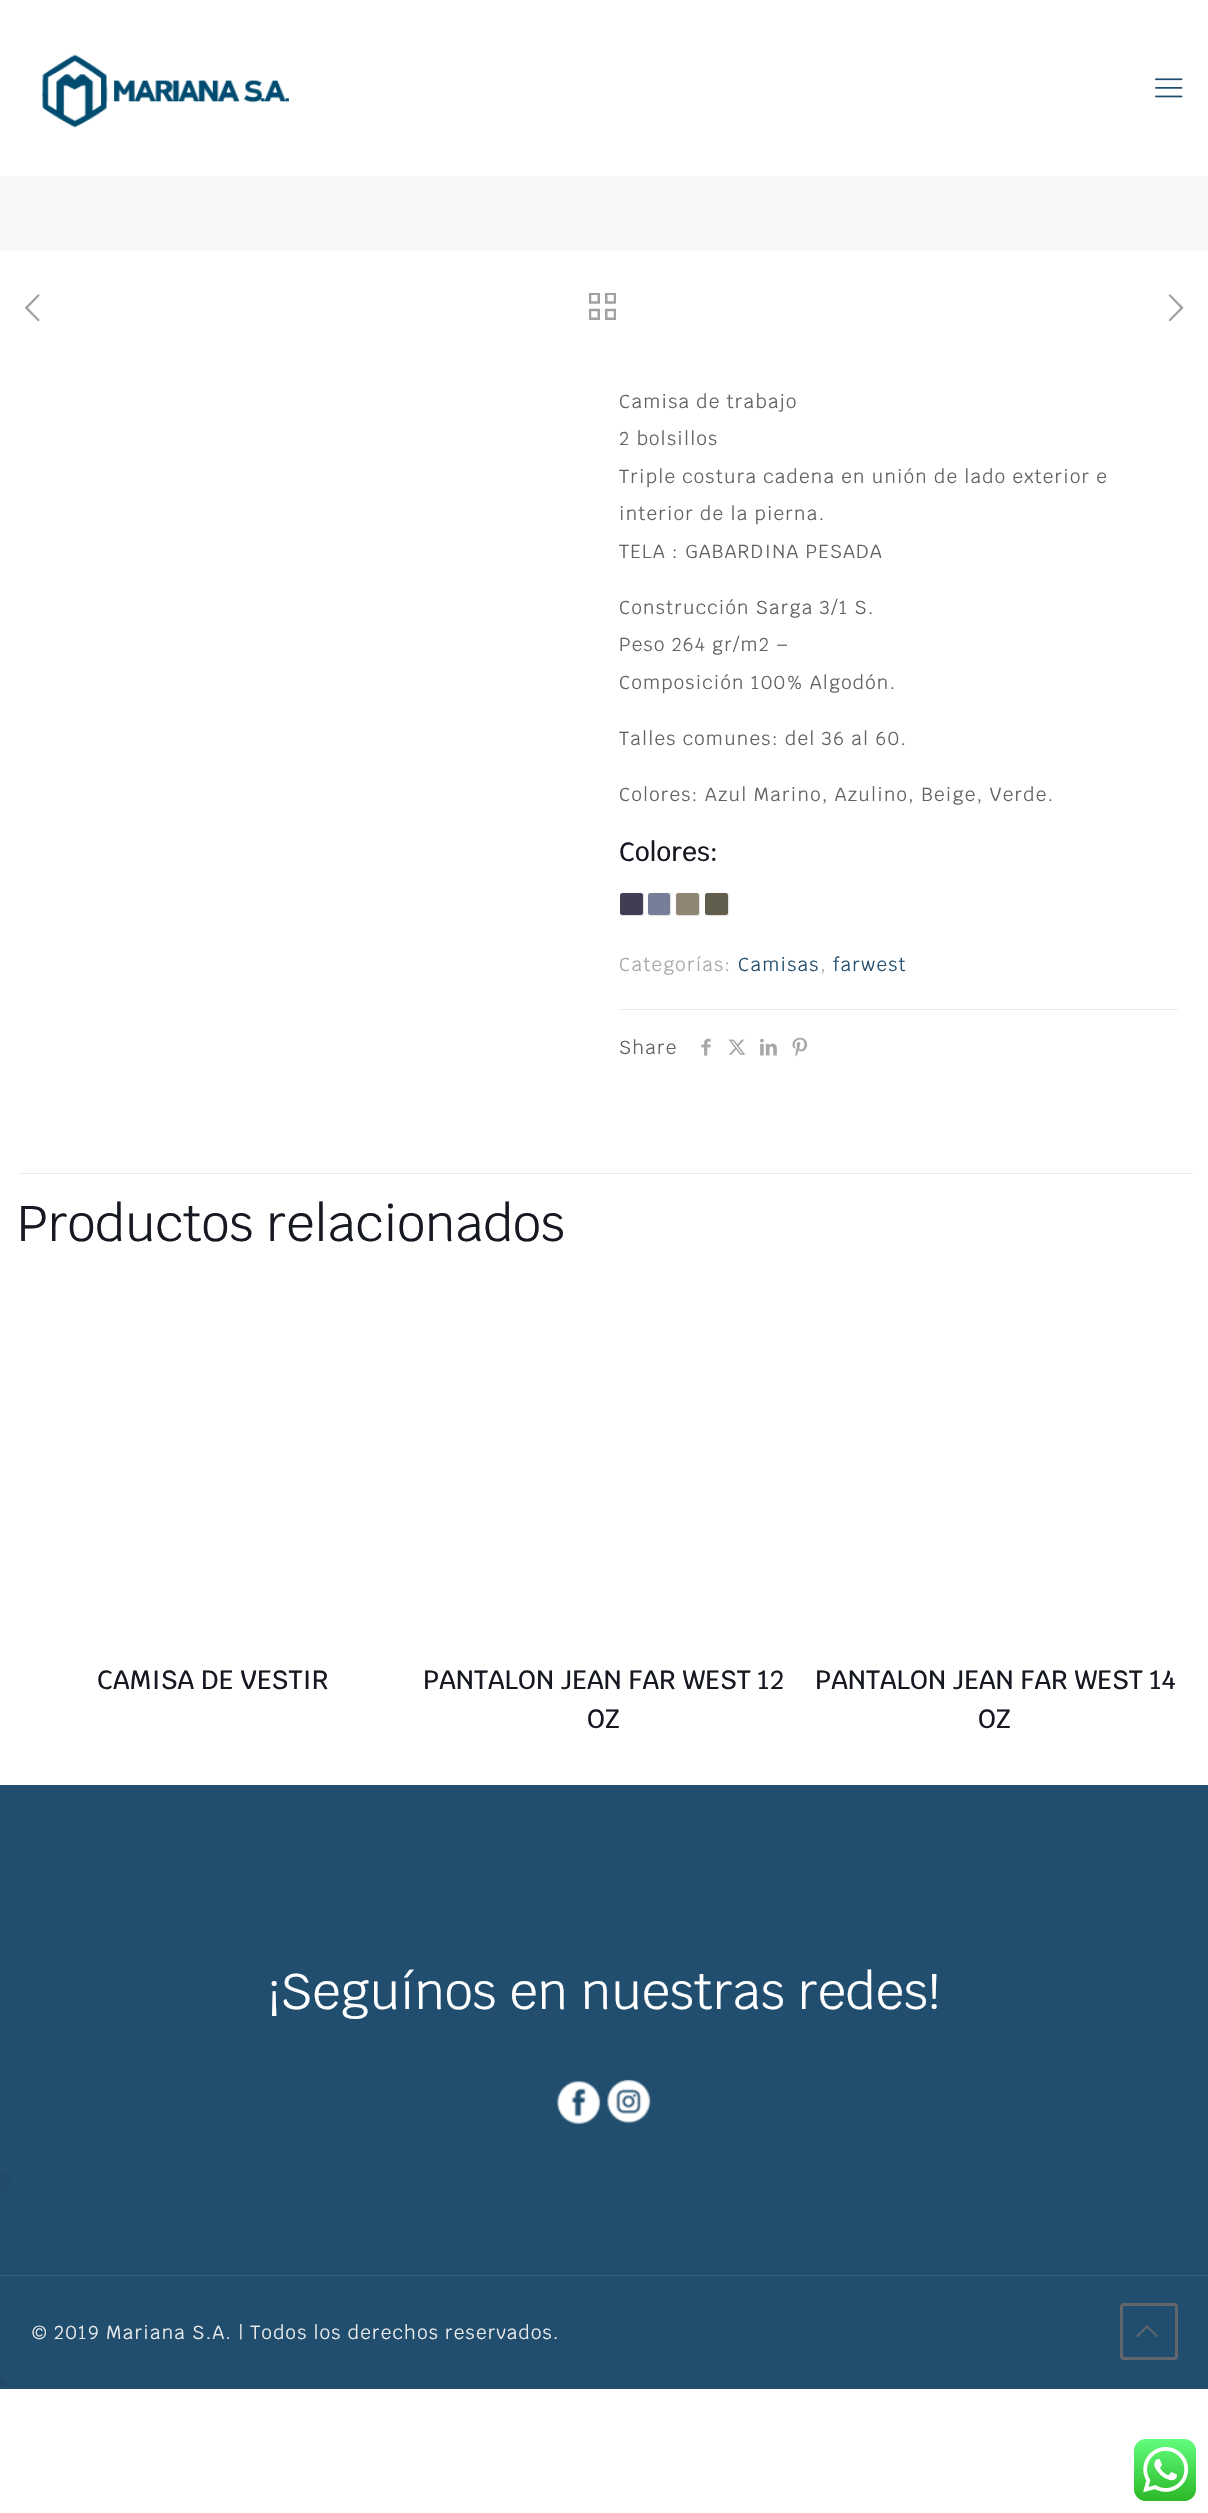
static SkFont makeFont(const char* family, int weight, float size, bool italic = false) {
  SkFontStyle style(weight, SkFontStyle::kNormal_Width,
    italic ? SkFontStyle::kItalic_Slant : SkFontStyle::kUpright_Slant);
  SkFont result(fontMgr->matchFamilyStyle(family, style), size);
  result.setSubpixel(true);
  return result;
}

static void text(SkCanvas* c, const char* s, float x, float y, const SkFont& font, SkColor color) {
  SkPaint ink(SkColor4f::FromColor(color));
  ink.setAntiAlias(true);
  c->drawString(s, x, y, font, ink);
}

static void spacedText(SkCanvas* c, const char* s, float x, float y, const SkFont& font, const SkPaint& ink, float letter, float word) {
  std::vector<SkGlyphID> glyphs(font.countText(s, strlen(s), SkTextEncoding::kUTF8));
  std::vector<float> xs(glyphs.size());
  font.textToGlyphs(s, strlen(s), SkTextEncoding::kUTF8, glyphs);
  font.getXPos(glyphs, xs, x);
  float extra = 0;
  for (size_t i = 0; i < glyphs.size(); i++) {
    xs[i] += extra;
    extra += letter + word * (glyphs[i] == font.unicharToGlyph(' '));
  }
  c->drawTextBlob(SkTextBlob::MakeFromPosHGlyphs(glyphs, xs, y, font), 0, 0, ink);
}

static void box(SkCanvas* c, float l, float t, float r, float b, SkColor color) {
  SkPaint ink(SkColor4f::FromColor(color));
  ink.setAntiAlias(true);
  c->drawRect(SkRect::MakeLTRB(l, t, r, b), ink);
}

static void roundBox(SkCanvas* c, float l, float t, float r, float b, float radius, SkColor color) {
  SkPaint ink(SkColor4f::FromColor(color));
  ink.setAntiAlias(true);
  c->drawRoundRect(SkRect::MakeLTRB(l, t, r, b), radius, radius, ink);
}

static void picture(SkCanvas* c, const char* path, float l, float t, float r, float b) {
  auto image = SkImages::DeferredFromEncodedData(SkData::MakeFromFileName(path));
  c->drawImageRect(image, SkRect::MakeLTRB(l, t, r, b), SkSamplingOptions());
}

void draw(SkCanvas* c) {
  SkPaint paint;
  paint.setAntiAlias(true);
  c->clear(0xffffffff);
  picture(c, "img_01.png", 42, 54, 289, 128);
  picture(c, "img_02.png", 1155, 78, 1183, 98);
  box(c, 0, 176, 1208, 251, 0xfff7f7f7);
  picture(c, "img_03.png", 25, 294, 40, 322);
  picture(c, "img_04.png", 589, 293, 616, 320);
  picture(c, "img_05.png", 1168, 294, 1184, 322);
  SkFont face1 = makeFont("Krub", 400, 18.75f);
  paint.setColor(0xff626262);
  spacedText(c, "Camisa de trabajo", 619, 408, face1, paint, 1.25f, 0);
  spacedText(c, "2 bolsillos", 619, 445, face1, paint, 1.25f, 0);
  spacedText(c, "Triple costura cadena en unión de lado exterior e", 619, 483, face1, paint, 1.25f, 0);
  spacedText(c, "interior de la pierna.", 619, 520, face1, paint, 1.25f, 0);
  spacedText(c, "TELA : GABARDINA PESADA", 619, 558, face1, paint, 1.25f, 0);
  spacedText(c, "Construcción Sarga 3/1 S.", 619, 614, face1, paint, 1.25f, 0);
  spacedText(c, "Peso 264 gr/m2 –", 619, 651, face1, paint, 1.25f, 0);
  spacedText(c, "Composición 100% Algodón.", 619, 689, face1, paint, 1.25f, 0);
  spacedText(c, "Talles comunes: del 36 al 60.", 619, 745, face1, paint, 1.25f, 0);
  spacedText(c, "Colores: Azul Marino, Azulino, Beige, Verde.", 619, 801, face1, paint, 1.25f, 0);
  SkFont face2 = makeFont("Krub", 500, 26.25f);
  text(c, "Colores:", 619, 861, face2, 0xff161922);
  paint.setColor(0xc7d6d5d5);
  paint.setMaskFilter(SkMaskFilter::MakeBlur(kNormal_SkBlurStyle, 0.5f));
  c->drawRoundRect(SkRect::MakeLTRB(620, 893, 644, 916), 3, 3, paint);
  paint.setMaskFilter(nullptr);
  roundBox(c, 620, 893, 643, 915, 2.5f, 0xff423d52);
  paint.setMaskFilter(SkMaskFilter::MakeBlur(kNormal_SkBlurStyle, 0.5f));
  c->drawRoundRect(SkRect::MakeLTRB(648, 893, 671, 916), 3, 3, paint);
  paint.setMaskFilter(nullptr);
  roundBox(c, 648, 893, 670, 915, 2.5f, 0xff777e97);
  paint.setMaskFilter(SkMaskFilter::MakeBlur(kNormal_SkBlurStyle, 0.5f));
  c->drawRoundRect(SkRect::MakeLTRB(676, 893, 700, 916), 3, 3, paint);
  paint.setMaskFilter(nullptr);
  roundBox(c, 676, 893, 699, 915, 2.5f, 0xff908574);
  paint.setMaskFilter(SkMaskFilter::MakeBlur(kNormal_SkBlurStyle, 0.5f));
  c->drawRoundRect(SkRect::MakeLTRB(705, 893, 729, 916), 3, 3, paint);
  paint.setMaskFilter(nullptr);
  roundBox(c, 705, 893, 728, 915, 2.5f, 0xff615e4e);
  paint.setColor(0xffa8a8a8);
  spacedText(c, "Categorías:", 619, 971, face1, paint, 1.25f, 0);
  paint.setColor(0xff214d6e);
  spacedText(c, "Camisas", 738, 971, face1, paint, 1.25f, 0);
  paint.setColor(0xffa8a8a8);
  spacedText(c, ",", 820, 971, face1, paint, 1.25f, 0);
  paint.setColor(0xff214d6e);
  spacedText(c, "farwest", 833, 971, face1, paint, 1.25f, 0);
  box(c, 620, 1009, 1178, 1010, 0xffebebeb);
  paint.setColor(0xff626262);
  spacedText(c, "Share", 619, 1054, face1, paint, 1.25f, 0);
  picture(c, "img_06.png", 701, 1038, 711, 1056);
  picture(c, "img_07.png", 728, 1039, 746, 1055);
  picture(c, "img_08.png", 760, 1038, 777, 1056);
  picture(c, "img_09.png", 792, 1037, 808, 1057);
  box(c, 18, 1173, 1193, 1174, 0xffebebeb);
  SkFont face3 = makeFont("Krub", 400, 50);
  text(c, "Productos relacionados", 17, 1241, face3, 0xff161922);
  text(c, "CAMISA DE VESTIR", 97, 1689, face2, 0xff161922);
  text(c, "PANTALON JEAN FAR WEST 12", 423, 1689, face2, 0xff161922);
  text(c, "OZ", 587, 1728, face2, 0xff161922);
  text(c, "PANTALON JEAN FAR WEST 14", 815, 1689, face2, 0xff161922);
  text(c, "OZ", 978, 1728, face2, 0xff161922);
  box(c, 0, 1785, 1208, 2389, 0xff214d6e);
  picture(c, "img_10.png", 0, 2171, 11, 2386);
  text(c, "¡Seguínos en nuestras redes!", 268, 2009, face3, 0xffffffff);
  picture(c, "img_11.png", 557, 2081, 601, 2124);
  picture(c, "img_12.png", 607, 2079, 651, 2123);
  box(c, 0, 2275, 1208, 2276, 0xff375f7d);
  paint.setColor(0xffededed);
  spacedText(c, "© 2019 Mariana S.A. | Todos los derechos reservados.", 32, 2339, face1, paint, 1.25f, 0);
  paint.setStyle(SkPaint::kStroke_Style);
  paint.setStrokeWidth(3);
  paint.setColor(0xff65666c);
  c->drawRoundRect(SkRect::MakeLTRB(1121.5f, 2304.5f, 1176.5f, 2358.5f), 2.5f, 2.5f, paint);
  picture(c, "img_13.png", 1136, 2325, 1158, 2337);
  picture(c, "img_14.png", 1134, 2439, 1196, 2501);
}
